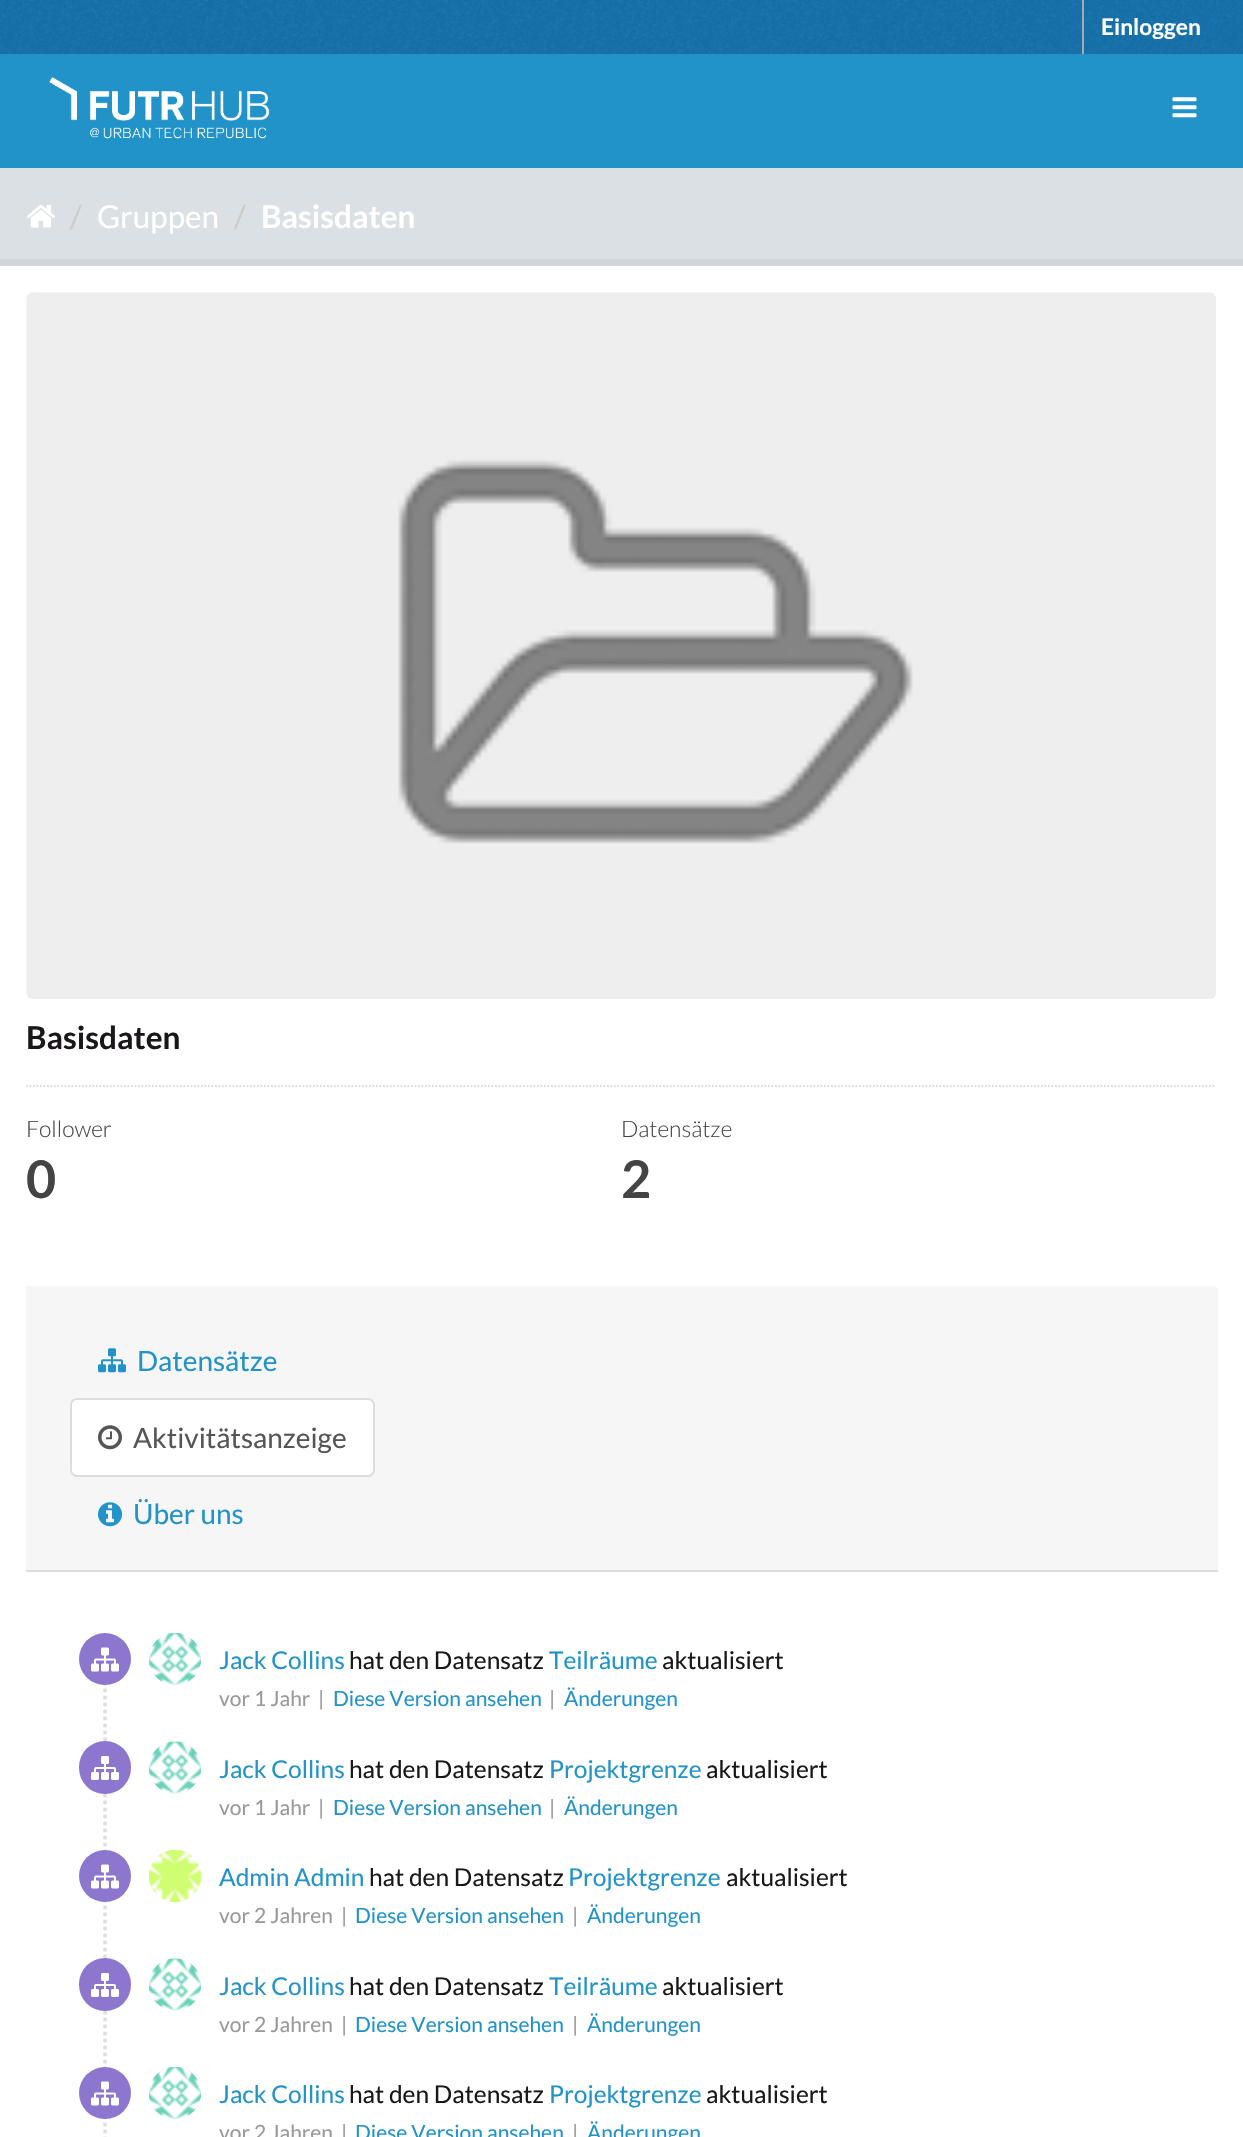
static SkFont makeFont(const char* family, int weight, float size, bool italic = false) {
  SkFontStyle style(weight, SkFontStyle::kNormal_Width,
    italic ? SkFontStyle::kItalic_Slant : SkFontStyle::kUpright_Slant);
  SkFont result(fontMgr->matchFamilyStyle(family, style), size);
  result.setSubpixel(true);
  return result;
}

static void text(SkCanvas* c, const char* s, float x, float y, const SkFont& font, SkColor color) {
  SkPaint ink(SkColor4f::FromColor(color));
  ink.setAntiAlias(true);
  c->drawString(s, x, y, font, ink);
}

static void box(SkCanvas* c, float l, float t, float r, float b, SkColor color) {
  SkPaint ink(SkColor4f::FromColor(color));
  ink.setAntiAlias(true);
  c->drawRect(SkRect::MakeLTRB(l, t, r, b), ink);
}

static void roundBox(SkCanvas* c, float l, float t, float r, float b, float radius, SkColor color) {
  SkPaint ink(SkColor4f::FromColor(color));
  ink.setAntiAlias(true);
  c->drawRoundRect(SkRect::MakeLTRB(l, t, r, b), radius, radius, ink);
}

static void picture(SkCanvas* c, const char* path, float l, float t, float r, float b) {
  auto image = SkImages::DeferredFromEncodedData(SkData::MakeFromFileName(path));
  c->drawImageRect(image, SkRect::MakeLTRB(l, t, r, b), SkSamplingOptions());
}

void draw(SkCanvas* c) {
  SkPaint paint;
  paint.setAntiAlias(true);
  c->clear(0xff2193c9);
  box(c, 0, 0, 1243, 54, 0xff1571aa);
  picture(c, "img_01.png", 0, 0, 1243, 54);
  box(c, 1082, 0, 1084, 54, 0xffa9aaac);
  SkFont face1 = makeFont("Lato", 700, 22.75f);
  text(c, "Einloggen", 1101, 35, face1, 0xffffffff);
  picture(c, "img_02.png", 49, 77, 270, 139);
  picture(c, "img_03.png", 1172, 97, 1197, 118);
  box(c, 0, 168, 1243, 259, 0xffdae0e3);
  picture(c, "img_04.png", 26, 205, 55, 228);
  SkFont face2 = makeFont("Lato", 400, 31.5f);
  text(c, "/", 70, 228, face2, 0xffcccccc);
  text(c, "Gruppen", 97, 228, face2, 0xffffffff);
  text(c, "/", 234, 228, face2, 0xffcccccc);
  SkFont face3 = makeFont("Lato", 700, 31.5f);
  text(c, "Basisdaten", 261, 228, face3, 0xffffffff);
  paint.setStyle(SkPaint::kStroke_Style);
  paint.setStrokeWidth(7);
  paint.setColor(0xffcfd5d8);
  c->drawRect(SkRect::MakeLTRB(-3.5f, 262.5f, 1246.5f, 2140.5f), paint);
  box(c, 0, 266, 1243, 2137, 0xffffffff);
  picture(c, "img_05.png", 26, 292, 1216, 999);
  text(c, "Basisdaten", 26, 1049, face3, 0xff1a171b);
  paint.setStrokeWidth(1.8f);
  paint.setColor(0xffdddddd);
  paint.setPathEffect(SkDashPathEffect::Make({{1.75f, 1.75f}}, 0));
  c->drawPath(SkPathBuilder().moveTo(26, 1086).lineTo(1216, 1086).detach(), paint);
  paint.setPathEffect(nullptr);
  SkFont face4 = makeFont("Lato", 300, 22.75f);
  text(c, "Follower", 26, 1137, face4, 0xff444444);
  SkFont face5 = makeFont("Lato", 700, 52);
  text(c, "0", 26, 1198, face5, 0xff444444);
  text(c, "Datensätze", 621, 1137, face4, 0xff444444);
  text(c, "2", 621, 1198, face5, 0xff444444);
  paint.setStyle(SkPaint::kFill_Style);
  paint.setColor(0xfff6f6f6);
  c->drawPath(SkPathBuilder().moveTo(26, 1286).lineTo(1213, 1286).cubicTo(1216, 1286, 1218, 1288, 1218, 1291).lineTo(1218, 1572).lineTo(26, 1572).close().detach(), paint);
  box(c, 26, 1570, 1218, 1572, 0xffdddddd);
  picture(c, "img_06.png", 98, 1348, 126, 1373);
  SkFont face6 = makeFont("Lato", 400, 28);
  text(c, "Datensätze", 137, 1371, face6, 0xff2193c9);
  paint.setColor(0xffffffff);
  c->drawRoundRect(SkRect::MakeLTRB(71, 1399, 374, 1476), 6, 6, paint);
  paint.setStyle(SkPaint::kStroke_Style);
  paint.setStrokeWidth(2);
  paint.setColor(0xffdddddd);
  c->drawRoundRect(SkRect::MakeLTRB(71, 1399, 374, 1476), 6, 6, paint);
  picture(c, "img_07.png", 98, 1425, 122, 1450);
  text(c, "Aktivitätsanzeige", 133, 1448, face6, 0xff555555);
  picture(c, "img_08.png", 98, 1502, 122, 1527);
  text(c, "Über uns", 133, 1524, face6, 0xff2193c9);
  picture(c, "img_09.png", 103, 1633, 107, 2137);
  paint.setStyle(SkPaint::kFill_Style);
  paint.setColor(0xff8c76ce);
  c->drawCircle(105, 1659, 26, paint);
  picture(c, "img_10.png", 91, 1647, 119, 1672);
  picture(c, "img_11.png", 149, 1633, 201, 1685);
  SkFont face7 = makeFont("Lato", 400, 24.5f);
  text(c, "Jack Collins", 219, 1669, face7, 0xff2193c9);
  text(c, "hat den Datensatz", 349, 1669, face7, 0xff1a171b);
  text(c, "Teilräume", 549, 1669, face7, 0xff2193c9);
  text(c, "aktualisiert", 662, 1669, face7, 0xff1a171b);
  SkFont face8 = makeFont("Lato", 400, 21);
  text(c, "vor 1 Jahr", 219, 1706, face8, 0xff999999);
  text(c, "|", 318, 1706, face8, 0xff999999);
  text(c, "Diese Version ansehen", 333, 1706, face8, 0xff2193c9);
  text(c, "|", 549, 1706, face8, 0xff999999);
  text(c, "Änderungen", 564, 1706, face8, 0xff2193c9);
  roundBox(c, 79, 1741, 131, 1794, 26, 0xff8c76ce);
  picture(c, "img_12.png", 91, 1756, 119, 1780);
  picture(c, "img_13.png", 148, 1741, 202, 1794);
  text(c, "Jack Collins", 219, 1778, face7, 0xff2193c9);
  text(c, "hat den Datensatz", 349, 1778, face7, 0xff1a171b);
  text(c, "Projektgrenze", 549, 1778, face7, 0xff2193c9);
  text(c, "aktualisiert", 706, 1778, face7, 0xff1a171b);
  text(c, "vor 1 Jahr", 219, 1815, face8, 0xff999999);
  text(c, "|", 318, 1815, face8, 0xff999999);
  text(c, "Diese Version ansehen", 333, 1815, face8, 0xff2193c9);
  text(c, "|", 549, 1815, face8, 0xff999999);
  text(c, "Änderungen", 564, 1815, face8, 0xff2193c9);
  c->drawCircle(105, 1876, 26, paint);
  picture(c, "img_10.png", 91, 1864, 119, 1889);
  picture(c, "img_14.png", 148, 1849, 202, 1903);
  text(c, "Admin Admin", 219, 1886, face7, 0xff2193c9);
  text(c, "hat den Datensatz", 369, 1886, face7, 0xff1a171b);
  text(c, "Projektgrenze", 568, 1886, face7, 0xff2193c9);
  text(c, "aktualisiert", 726, 1886, face7, 0xff1a171b);
  text(c, "vor 2 Jahren", 219, 1923, face8, 0xff999999);
  text(c, "|", 341, 1923, face8, 0xff999999);
  text(c, "Diese Version ansehen", 355, 1923, face8, 0xff2193c9);
  text(c, "|", 572, 1923, face8, 0xff999999);
  text(c, "Änderungen", 587, 1923, face8, 0xff2193c9);
  roundBox(c, 79, 1958, 131, 2011, 26, 0xff8c76ce);
  picture(c, "img_12.png", 91, 1973, 119, 1997);
  picture(c, "img_15.png", 148, 1958, 202, 2011);
  text(c, "Jack Collins", 219, 1995, face7, 0xff2193c9);
  text(c, "hat den Datensatz", 349, 1995, face7, 0xff1a171b);
  text(c, "Teilräume", 549, 1995, face7, 0xff2193c9);
  text(c, "aktualisiert", 662, 1995, face7, 0xff1a171b);
  text(c, "vor 2 Jahren", 219, 2032, face8, 0xff999999);
  text(c, "|", 341, 2032, face8, 0xff999999);
  text(c, "Diese Version ansehen", 355, 2032, face8, 0xff2193c9);
  text(c, "|", 572, 2032, face8, 0xff999999);
  text(c, "Änderungen", 587, 2032, face8, 0xff2193c9);
  c->drawCircle(105, 2093, 26, paint);
  picture(c, "img_10.png", 91, 2081, 119, 2106);
  picture(c, "img_11.png", 149, 2067, 201, 2119);
  text(c, "Jack Collins", 219, 2103, face7, 0xff2193c9);
  text(c, "hat den Datensatz", 349, 2103, face7, 0xff1a171b);
  text(c, "Projektgrenze", 549, 2103, face7, 0xff2193c9);
  text(c, "aktualisiert", 706, 2103, face7, 0xff1a171b);
  text(c, "vor 2 Jahren", 219, 2140, face8, 0xff999999);
  text(c, "|", 341, 2140, face8, 0xff999999);
  text(c, "Diese Version ansehen", 355, 2140, face8, 0xff2193c9);
  text(c, "|", 572, 2140, face8, 0xff999999);
  text(c, "Änderungen", 587, 2140, face8, 0xff2193c9);
}
